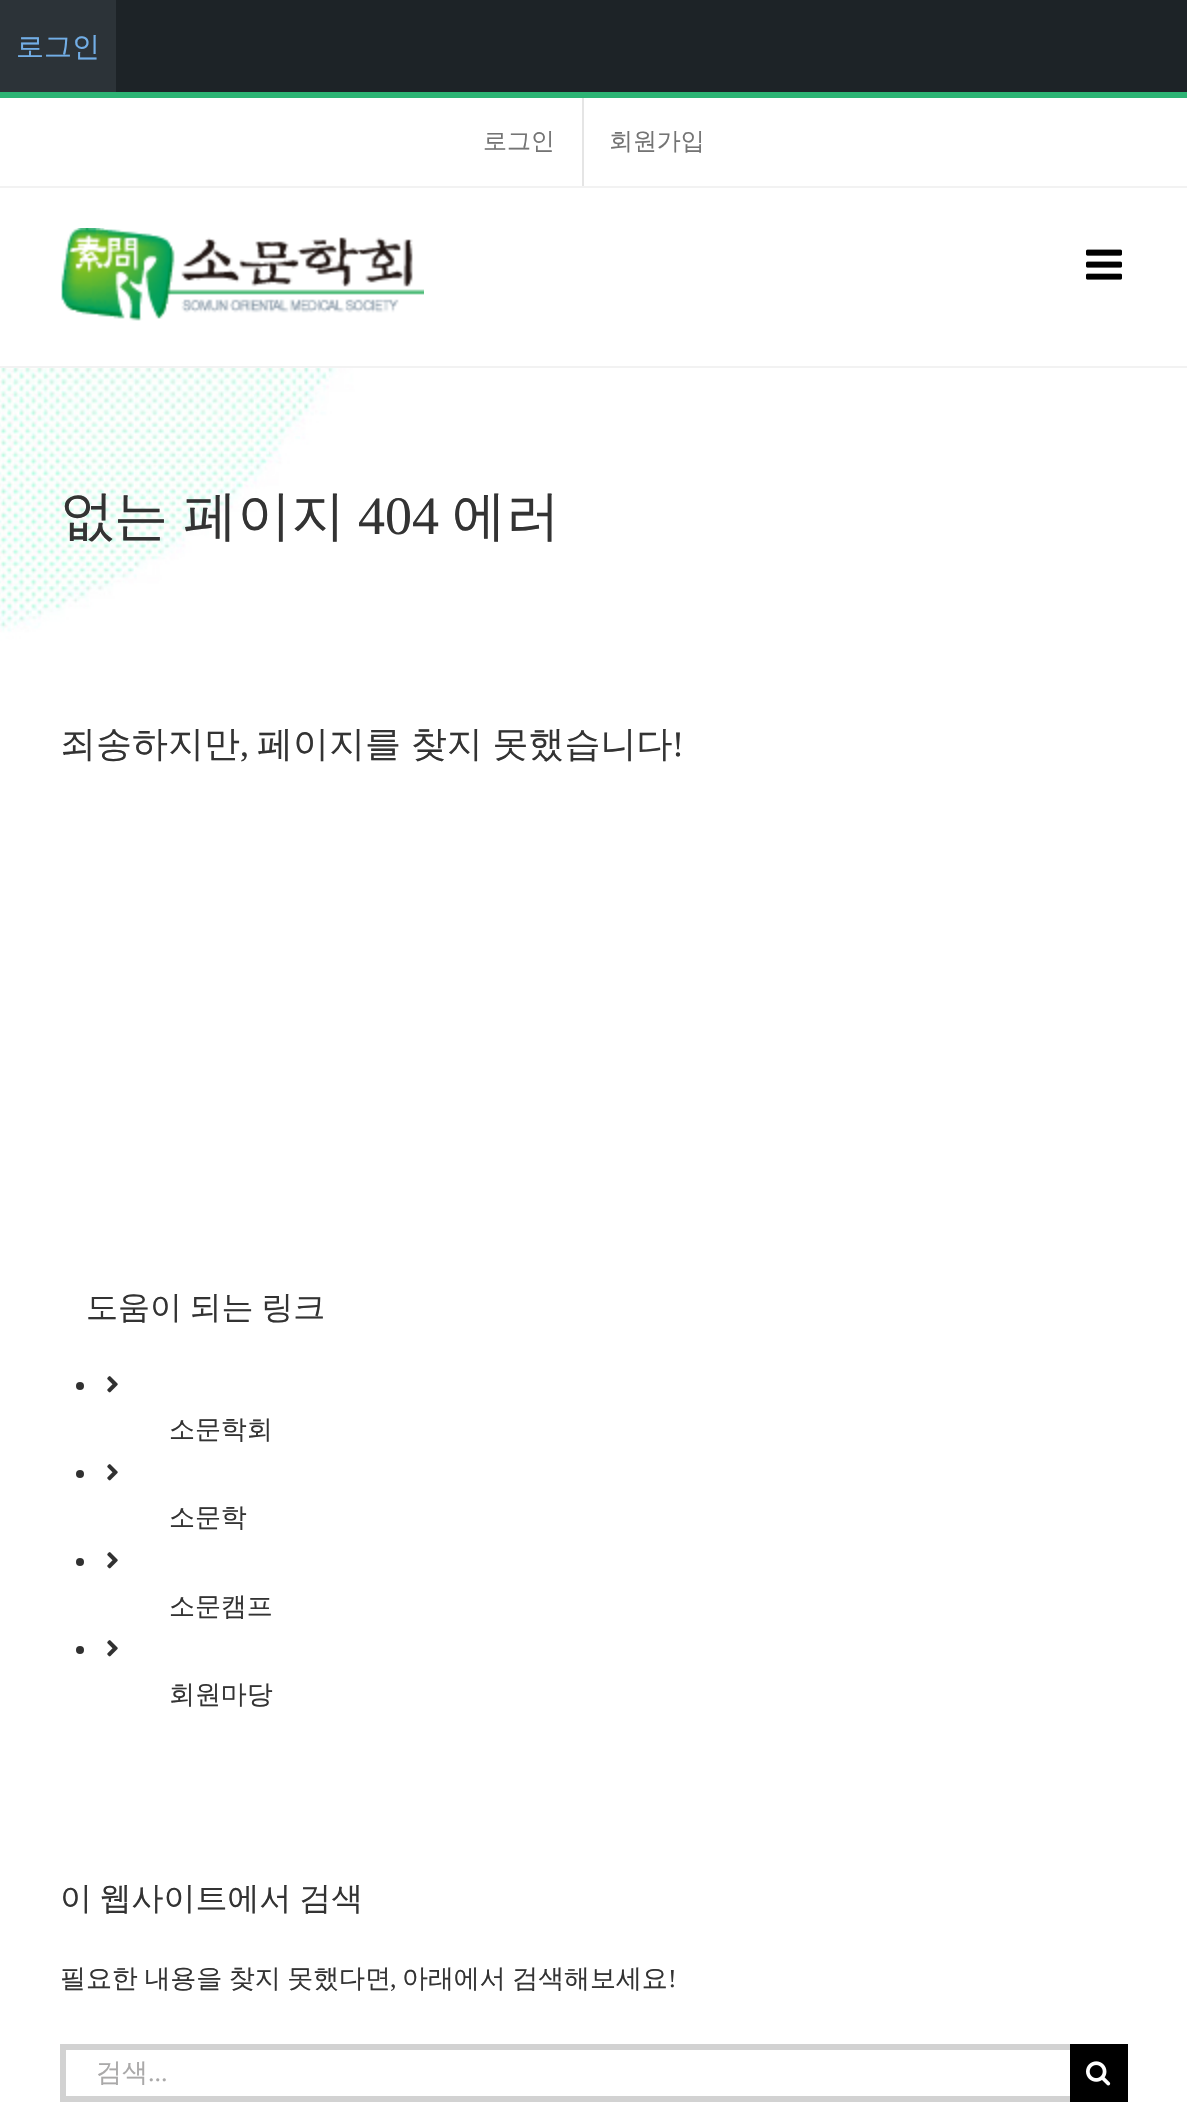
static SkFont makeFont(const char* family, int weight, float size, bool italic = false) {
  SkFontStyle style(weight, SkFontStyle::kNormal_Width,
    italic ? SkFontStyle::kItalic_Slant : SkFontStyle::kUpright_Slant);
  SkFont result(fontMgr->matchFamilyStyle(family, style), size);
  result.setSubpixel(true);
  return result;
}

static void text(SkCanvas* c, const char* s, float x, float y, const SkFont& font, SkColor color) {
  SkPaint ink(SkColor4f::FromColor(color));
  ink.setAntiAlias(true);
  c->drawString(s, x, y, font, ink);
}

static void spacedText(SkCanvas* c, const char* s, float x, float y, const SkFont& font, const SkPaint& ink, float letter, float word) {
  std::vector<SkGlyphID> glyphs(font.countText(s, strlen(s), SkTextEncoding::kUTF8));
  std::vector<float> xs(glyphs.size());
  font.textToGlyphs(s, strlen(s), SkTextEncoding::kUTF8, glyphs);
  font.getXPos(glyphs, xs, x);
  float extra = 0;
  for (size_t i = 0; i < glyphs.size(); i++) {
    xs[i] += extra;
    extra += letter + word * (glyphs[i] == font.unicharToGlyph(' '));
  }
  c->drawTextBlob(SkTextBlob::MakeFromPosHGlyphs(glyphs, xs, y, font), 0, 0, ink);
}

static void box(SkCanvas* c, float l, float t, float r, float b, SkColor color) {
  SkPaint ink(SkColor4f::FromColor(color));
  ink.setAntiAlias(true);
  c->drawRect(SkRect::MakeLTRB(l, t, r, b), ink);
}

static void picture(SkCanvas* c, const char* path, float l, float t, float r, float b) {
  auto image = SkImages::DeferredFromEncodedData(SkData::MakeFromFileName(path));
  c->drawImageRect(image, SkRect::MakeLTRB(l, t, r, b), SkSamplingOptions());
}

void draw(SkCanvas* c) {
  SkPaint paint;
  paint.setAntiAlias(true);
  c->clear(0xffffffff);
  box(c, 116, 0, 1187, 92, 0xff1d2327);
  box(c, 0, 0, 116, 92, 0xff2c3338);
  SkFont face1 = makeFont("WenQuanYi Zen Hei", 500, 28);
  text(c, "로그인", 16, 56, face1, 0xff72aee6);
  box(c, 0, 92, 1187, 98, 0xff2cb474);
  box(c, 0, 186, 1187, 188, 0xfff2f2f2);
  SkFont face2 = makeFont("WenQuanYi Zen Hei", 500, 24);
  paint.setColor(0xff747474);
  spacedText(c, "로그인", 483, 149, face2, paint, -0.1f, 0);
  box(c, 582, 98, 584, 186, 0xffe5e5e5);
  spacedText(c, "회원가입", 609, 149, face2, paint, -0.1f, 0);
  box(c, 0, 366, 1187, 368, 0xfff2f2f2);
  picture(c, "img_01.png", 61, 228, 424, 321);
  picture(c, "img_02.png", 1086, 249, 1122, 280);
  picture(c, "img_03.png", 0, 368, 1187, 668);
  SkFont face3 = makeFont("WenQuanYi Zen Hei", 500, 54);
  paint.setColor(0xff333333);
  spacedText(c, "없는 페이지", 60, 534, face3, paint, 0, -1);
  SkFont face4 = makeFont("Liberation Serif", 400, 54);
  text(c, "404", 358, 534, face4, 0xff333333);
  text(c, "에러", 452, 534, face3, 0xff333333);
  SkFont face5 = makeFont("WenQuanYi Zen Hei", 500, 36);
  text(c, "죄송하지만", 60, 756, face5, 0xff333333);
  SkFont face6 = makeFont("Liberation Serif", 400, 36);
  text(c, ",", 240, 756, face6, 0xff333333);
  spacedText(c, "페이지를 찾지 못했습니다", 257, 756, face5, paint, 0, -1);
  text(c, "!", 672, 756, face6, 0xff333333);
  SkFont face7 = makeFont("WenQuanYi Zen Hei", 500, 32);
  spacedText(c, "도움이 되는 링크", 86, 1318, face7, paint, 0, -2);
  paint.setColor(0xff313131);
  c->drawCircle(80, 1386, 4, paint);
  picture(c, "img_04.png", 107, 1376, 118, 1393);
  SkFont face8 = makeFont("WenQuanYi Zen Hei", 500, 26);
  paint.setColor(0xff333333);
  spacedText(c, "소문학회", 169, 1438, face8, paint, -0.1f, 0);
  paint.setColor(0xff313131);
  c->drawCircle(80, 1474, 4, paint);
  picture(c, "img_04.png", 107, 1464, 118, 1481);
  paint.setColor(0xff333333);
  spacedText(c, "소문학", 169, 1526, face8, paint, -0.1f, 0);
  paint.setColor(0xff313131);
  c->drawCircle(80, 1562, 4, paint);
  picture(c, "img_04.png", 107, 1552, 118, 1569);
  paint.setColor(0xff333333);
  spacedText(c, "소문캠프", 169, 1615, face8, paint, -0.1f, 0);
  paint.setColor(0xff313131);
  c->drawCircle(80, 1650, 4, paint);
  picture(c, "img_04.png", 107, 1640, 118, 1657);
  paint.setColor(0xff333333);
  spacedText(c, "회원마당", 169, 1703, face8, paint, -0.1f, 0);
  spacedText(c, "이 웹사이트에서 검색", 60, 1909, face7, paint, 0, -2);
  spacedText(c, "필요한 내용을 찾지 못했다면", 60, 1987, face8, paint, -0.1f, -1);
  SkFont face9 = makeFont("Liberation Serif", 400, 26);
  spacedText(c, ",", 390, 1987, face9, paint, -0.1f, 0);
  spacedText(c, "아래에서 검색해보세요", 402, 1987, face8, paint, -0.1f, -1);
  spacedText(c, "!", 668, 1987, face9, paint, -0.1f, 0);
  box(c, 60, 2044, 1070, 2050, 0xffd2d2d2);
  box(c, 60, 2096, 1070, 2102, 0xffd2d2d2);
  box(c, 60, 2044, 66, 2102, 0xffd2d2d2);
  text(c, "검색", 96, 2081, face8, 0xffaaa9a9);
  text(c, "...", 148, 2081, face9, 0xffaaa9a9);
  box(c, 1070, 2044, 1128, 2102, 0xff000000);
  picture(c, "img_05.png", 1086, 2061, 1111, 2086);
}
